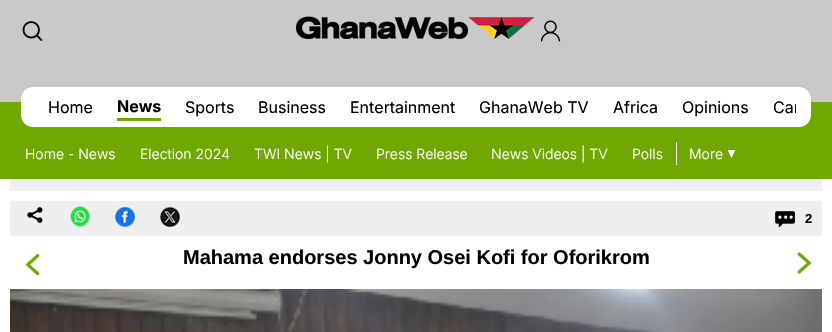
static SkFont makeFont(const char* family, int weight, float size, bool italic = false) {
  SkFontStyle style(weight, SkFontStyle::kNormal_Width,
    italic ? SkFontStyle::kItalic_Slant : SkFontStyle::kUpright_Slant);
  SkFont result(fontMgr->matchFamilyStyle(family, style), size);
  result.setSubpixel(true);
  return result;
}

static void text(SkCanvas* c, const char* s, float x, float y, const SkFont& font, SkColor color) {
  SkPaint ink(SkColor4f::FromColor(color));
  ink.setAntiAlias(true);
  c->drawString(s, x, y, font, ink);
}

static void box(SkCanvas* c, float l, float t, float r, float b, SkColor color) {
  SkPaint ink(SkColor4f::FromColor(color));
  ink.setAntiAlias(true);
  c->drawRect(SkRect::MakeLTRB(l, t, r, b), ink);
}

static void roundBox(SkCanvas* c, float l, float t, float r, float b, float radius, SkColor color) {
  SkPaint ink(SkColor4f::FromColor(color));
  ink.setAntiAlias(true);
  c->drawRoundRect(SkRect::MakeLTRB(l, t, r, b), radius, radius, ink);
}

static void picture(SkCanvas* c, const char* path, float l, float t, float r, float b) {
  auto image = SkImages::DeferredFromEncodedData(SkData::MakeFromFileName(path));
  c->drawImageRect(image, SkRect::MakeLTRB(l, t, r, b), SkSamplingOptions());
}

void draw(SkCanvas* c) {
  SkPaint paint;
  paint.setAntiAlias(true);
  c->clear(0xffffffff);
  box(c, 0, 0, 832, 102, 0xffc9c9c9);
  picture(c, "img_01.png", 22, 21, 43, 41);
  picture(c, "img_02.png", 296, 16, 535, 39);
  picture(c, "img_03.png", 541, 20, 561, 42);
  box(c, 0, 102, 832, 179, 0xff70a703);
  roundBox(c, 21, 87, 811, 127, 12, 0xffffffff);
  SkFont face1 = makeFont("Inter", 400, 16);
  text(c, "Home", 48, 113, face1, 0xff000000);
  box(c, 117, 118, 161, 121, 0xff70a703);
  SkFont face2 = makeFont("Inter", 700, 16);
  text(c, "News", 117, 112, face2, 0xff000000);
  text(c, "Sports", 185, 113, face1, 0xff000000);
  text(c, "Business", 258, 113, face1, 0xff000000);
  text(c, "Entertainment", 350, 113, face1, 0xff000000);
  text(c, "GhanaWeb TV", 479, 113, face1, 0xff000000);
  text(c, "Africa", 613, 113, face1, 0xff000000);
  text(c, "Opinions", 682, 113, face1, 0xff000000);
  c->save();
  c->clipRect(SkRect::MakeLTRB(36, 94, 796, 121));
  text(c, "Car", 773, 113, face1, 0xff000000);
  c->restore();
  SkFont face3 = makeFont("Inter", 300, 14);
  text(c, "Home - News", 25, 159, face3, 0xffffffff);
  text(c, "Election 2024", 140, 159, face3, 0xffffffff);
  text(c, "TWI News | TV", 254, 159, face3, 0xffffffff);
  text(c, "Press Release", 376, 159, face3, 0xffffffff);
  text(c, "News Videos | TV", 491, 159, face3, 0xffffffff);
  text(c, "Polls", 632, 159, face3, 0xffffffff);
  box(c, 676, 142, 677, 165, 0xffffffff);
  text(c, "More", 689, 159, face3, 0xffffffff);
  paint.setColor(0xffffffff);
  c->drawPath(SkPathBuilder().moveTo(728, 150).lineTo(728, 150.5f).lineTo(731.5f, 158).lineTo(735.5f, 150).close().detach(), paint);
  box(c, 10, 179, 822, 191, 0xffeeeeee);
  roundBox(c, 10, 201, 822, 236, 3, 0xffefefef);
  picture(c, "img_04.png", 27, 207, 43, 223);
  picture(c, "img_05.png", 70, 206, 90, 227);
  picture(c, "img_06.png", 115, 206, 135, 227);
  picture(c, "img_07.png", 160, 206, 180, 227);
  picture(c, "img_08.png", 775, 211, 795, 227);
  SkFont face4 = makeFont("Liberation Sans", 700, 13);
  text(c, "2", 805, 223, face4, 0xff000000);
  picture(c, "img_09.png", 26, 253, 40, 275);
  SkFont face5 = makeFont("Liberation Sans", 700, 20);
  text(c, "Mahama endorses Jonny Osei Kofi for Oforikrom", 183, 264, face5, 0xff000000);
  picture(c, "img_10.png", 797, 252, 811, 274);
  picture(c, "img_11.png", 10, 289, 822, 332);
}
